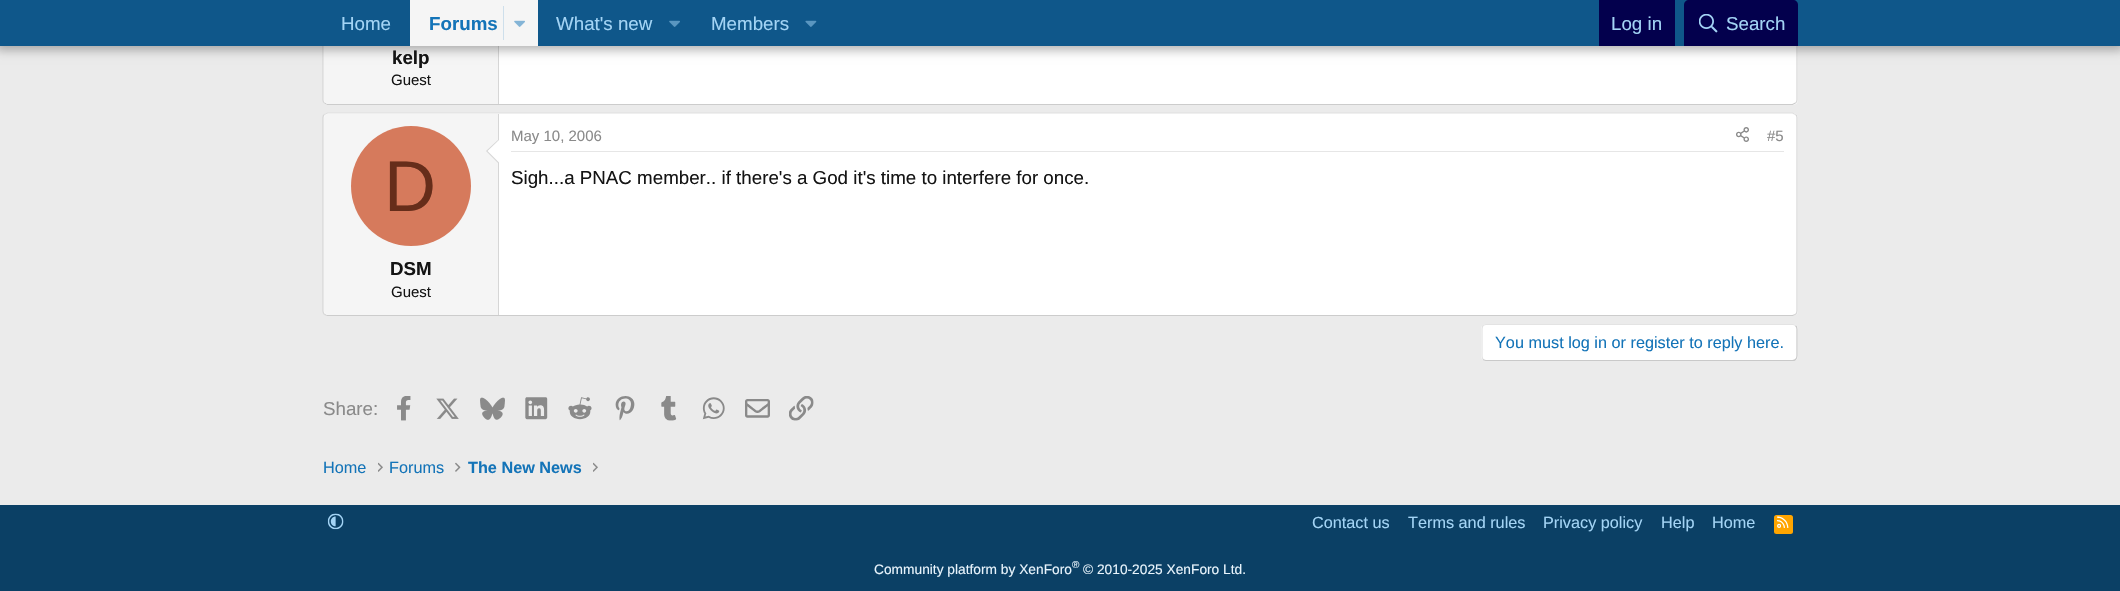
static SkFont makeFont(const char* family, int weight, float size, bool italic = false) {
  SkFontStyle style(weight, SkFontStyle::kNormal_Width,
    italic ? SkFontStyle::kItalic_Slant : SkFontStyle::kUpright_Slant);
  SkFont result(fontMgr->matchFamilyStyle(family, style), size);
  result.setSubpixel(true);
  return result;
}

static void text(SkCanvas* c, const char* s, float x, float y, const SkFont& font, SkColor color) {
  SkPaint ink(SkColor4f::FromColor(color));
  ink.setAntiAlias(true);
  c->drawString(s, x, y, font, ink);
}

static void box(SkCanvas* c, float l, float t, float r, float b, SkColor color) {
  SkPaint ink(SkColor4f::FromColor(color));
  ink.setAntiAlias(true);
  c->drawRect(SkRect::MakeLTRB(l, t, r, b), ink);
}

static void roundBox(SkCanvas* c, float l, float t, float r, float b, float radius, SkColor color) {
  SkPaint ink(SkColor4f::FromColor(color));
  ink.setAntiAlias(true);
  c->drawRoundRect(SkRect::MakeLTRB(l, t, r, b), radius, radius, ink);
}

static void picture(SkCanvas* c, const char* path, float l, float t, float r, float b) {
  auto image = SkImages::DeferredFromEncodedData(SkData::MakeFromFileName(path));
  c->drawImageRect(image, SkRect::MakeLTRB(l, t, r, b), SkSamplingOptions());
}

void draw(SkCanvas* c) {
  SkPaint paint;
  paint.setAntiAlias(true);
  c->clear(0xffebebeb);
  roundBox(c, 323, -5, 1798, 105, 5, 0xffffffff);
  paint.setStyle(SkPaint::kStroke_Style);
  paint.setStrokeWidth(1.2f);
  paint.setColor(0xffd6d6d6);
  c->drawPath(SkPathBuilder().moveTo(1795.5f, -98).cubicTo(1796.5f, -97.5f, 1797, -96, 1797, -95).lineTo(1797, 100).cubicTo(1797, 101, 1796.5f, 102.5f, 1795.5f, 103).detach(), paint);
  paint.setColor(0xffcccccc);
  c->drawPath(SkPathBuilder().moveTo(1795.5f, 103).lineTo(1792.5f, 104.5f).lineTo(327.5f, 104.5f).lineTo(324.5f, 103).detach(), paint);
  paint.setColor(0xffd6d6d6);
  c->drawPath(SkPathBuilder().moveTo(324.5f, 103).cubicTo(323.5f, 102.5f, 323, 101, 323, 100).lineTo(323, -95).cubicTo(323, -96, 323.5f, -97.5f, 324.5f, -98).detach(), paint);
  paint.setStyle(SkPaint::kFill_Style);
  paint.setColor(0xfff5f5f5);
  c->drawPath(SkPathBuilder().moveTo(328, -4).lineTo(499, -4).lineTo(499, 104).lineTo(328, 104).cubicTo(326, 104, 324, 102, 324, 100).lineTo(324, 0).cubicTo(324, -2, 326, -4, 328, -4).close().detach(), paint);
  box(c, 498, 46, 499, 104, 0xffd6d6d6);
  paint.setColor(0x4d000000);
  paint.setMaskFilter(SkMaskFilter::MakeBlur(kNormal_SkBlurStyle, 5));
  c->drawRect(SkRect::MakeLTRB(-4, -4, 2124, 50), paint);
  paint.setMaskFilter(nullptr);
  box(c, 0, 0, 2120, 46, 0xff0f578a);
  SkFont face1 = makeFont("Liberation Sans", 400, 18.75f);
  text(c, "Home", 341, 30, face1, 0xffa3d4f5);
  box(c, 410, 0, 538, 46, 0xfff5f5f5);
  SkFont face2 = makeFont("Liberation Sans", 700, 18.75f);
  text(c, "Forums", 429, 30, face2, 0xff1474b8);
  box(c, 503, 6, 504, 40, 0xffcedfeb);
  picture(c, "img_01.png", 514, 20, 525, 27);
  text(c, "What's new", 556, 30, face1, 0xffa3d4f5);
  picture(c, "img_02.png", 669, 20, 680, 27);
  text(c, "Members", 711, 30, face1, 0xffa3d4f5);
  picture(c, "img_03.png", 805, 20, 817, 27);
  box(c, 1599, 0, 1675, 46, 0xff03004d);
  text(c, "Log in", 1611, 30, face1, 0xffa3d4f5);
  paint.setColor(0xff03004d);
  c->drawPath(SkPathBuilder().moveTo(1689, 0).lineTo(1793, 0).cubicTo(1796, 0, 1798, 2, 1798, 5).lineTo(1798, 46).lineTo(1684, 46).lineTo(1684, 5).cubicTo(1684, 2, 1686, 0, 1689, 0).close().detach(), paint);
  picture(c, "img_04.png", 1699, 14, 1718, 33);
  text(c, "Search", 1726, 30, face1, 0xffa3d4f5);
  text(c, "kelp", 392, 64, face2, 0xff141414);
  SkFont face3 = makeFont("Liberation Sans", 400, 15);
  text(c, "Guest", 391, 85, face3, 0xff141414);
  roundBox(c, 323, 113, 1798, 316, 5, 0xffffffff);
  paint.setStyle(SkPaint::kStroke_Style);
  paint.setColor(0xffe0e0e0);
  c->drawPath(SkPathBuilder().moveTo(324.5f, 114.5f).lineTo(327.5f, 113).lineTo(1792.5f, 113).lineTo(1795.5f, 114.5f).detach(), paint);
  paint.setColor(0xffd6d6d6);
  c->drawPath(SkPathBuilder().moveTo(1795.5f, 114.5f).cubicTo(1796.5f, 115, 1797, 116.5f, 1797, 117.5f).lineTo(1797, 311).cubicTo(1797, 312.5f, 1796.5f, 313.5f, 1795.5f, 314.5f).detach(), paint);
  paint.setColor(0xffcccccc);
  c->drawPath(SkPathBuilder().moveTo(1795.5f, 314.5f).lineTo(1792.5f, 315.5f).lineTo(327.5f, 315.5f).lineTo(324.5f, 314.5f).detach(), paint);
  paint.setColor(0xffd6d6d6);
  c->drawPath(SkPathBuilder().moveTo(324.5f, 314.5f).cubicTo(323.5f, 313.5f, 323, 312.5f, 323, 311).lineTo(323, 117.5f).cubicTo(323, 116.5f, 323.5f, 115, 324.5f, 114.5f).detach(), paint);
  paint.setStyle(SkPaint::kFill_Style);
  paint.setColor(0xfff5f5f5);
  c->drawPath(SkPathBuilder().moveTo(328, 114).lineTo(499, 114).lineTo(499, 315).lineTo(328, 315).cubicTo(326, 315, 324, 313, 324, 311).lineTo(324, 118).cubicTo(324, 116, 326, 114, 328, 114).close().detach(), paint);
  box(c, 498, 114, 499, 315, 0xffd6d6d6);
  paint.setColor(0xffd6d6d6);
  c->drawPath(SkPathBuilder().moveTo(499, 139).lineTo(499, 164).lineTo(486, 151).close().detach(), paint);
  paint.setColor(0xffffffff);
  c->drawPath(SkPathBuilder().moveTo(499, 140).lineTo(499, 162.5f).lineTo(487.5f, 151).close().detach(), paint);
  paint.setColor(0xffd67a5c);
  c->drawCircle(411, 186, 60, paint);
  SkFont face4 = makeFont("Liberation Sans", 400, 72);
  text(c, "D", 384, 211, face4, 0xff662d1a);
  text(c, "DSM", 390, 275, face2, 0xff141414);
  text(c, "Guest", 391, 297, face3, 0xff141414);
  box(c, 511, 151, 1784, 152, 0xffe6e6e6);
  text(c, "May 10, 2006", 511, 141, face3, 0xff8a8a8a);
  picture(c, "img_05.png", 1736, 127, 1749, 142);
  text(c, "#5", 1767, 141, face3, 0xff8a8a8a);
  text(c, "Sigh...a PNAC member.. if there's a God it's time to interfere for once.", 511, 184, face1, 0xff141414);
  roundBox(c, 1481, 324, 1798, 361, 5, 0xffffffff);
  paint.setStyle(SkPaint::kStroke_Style);
  paint.setColor(0xffc9c9c9);
  c->drawPath(SkPathBuilder().moveTo(1795.5f, 325.5f).cubicTo(1796.5f, 326.5f, 1797, 327.5f, 1797, 329).lineTo(1797, 356).cubicTo(1797, 357.5f, 1796.5f, 358.5f, 1795.5f, 359.5f).cubicTo(1795, 360, 1793.5f, 360.5f, 1792.5f, 360.5f).lineTo(1486, 360.5f).cubicTo(1485, 360.5f, 1484, 360, 1483, 359.5f).detach(), paint);
  paint.setColor(0xffe3e3e3);
  c->drawPath(SkPathBuilder().moveTo(1483, 359.5f).cubicTo(1482.5f, 358.5f, 1482, 357.5f, 1482, 356).lineTo(1482, 329).cubicTo(1482, 327.5f, 1482.5f, 326.5f, 1483, 325.5f).cubicTo(1484, 325, 1485, 324.5f, 1486, 324.5f).lineTo(1792.5f, 324.5f).cubicTo(1793.5f, 324.5f, 1795, 325, 1795.5f, 325.5f).detach(), paint);
  SkFont face5 = makeFont("Liberation Sans", 400, 16.25f);
  text(c, "You must log in or register to reply here.", 1495, 348, face5, 0xff1474b8);
  text(c, "Share:", 323, 415, face1, 0xff8a8a8a);
  picture(c, "img_06.png", 397, 396, 411, 421);
  picture(c, "img_07.png", 436, 398, 459, 419);
  picture(c, "img_08.png", 480, 397, 505, 420);
  picture(c, "img_09.png", 525, 397, 548, 420);
  picture(c, "img_10.png", 568, 397, 592, 420);
  picture(c, "img_11.png", 615, 396, 635, 421);
  picture(c, "img_12.png", 661, 396, 677, 421);
  picture(c, "img_13.png", 702, 397, 725, 420);
  picture(c, "img_14.png", 745, 399, 770, 418);
  picture(c, "img_15.png", 789, 396, 814, 421);
  text(c, "Home", 323, 473, face5, 0xff1474b8);
  picture(c, "img_16.png", 378, 462, 383, 472);
  text(c, "Forums", 389, 473, face5, 0xff1474b8);
  picture(c, "img_17.png", 455, 462, 461, 472);
  SkFont face6 = makeFont("Liberation Sans", 700, 16.25f);
  text(c, "The New News", 468, 473, face6, 0xff1474b8);
  picture(c, "img_16.png", 593, 462, 598, 472);
  box(c, 0, 505, 2120, 591, 0xff0b4065);
  picture(c, "img_18.png", 327, 513, 344, 530);
  text(c, "Contact us", 1312, 528, face5, 0xffa3d4f5);
  text(c, "Terms and rules", 1408, 528, face5, 0xffa3d4f5);
  text(c, "Privacy policy", 1543, 528, face5, 0xffa3d4f5);
  text(c, "Help", 1661, 528, face5, 0xffa3d4f5);
  text(c, "Home", 1712, 528, face5, 0xffa3d4f5);
  roundBox(c, 1774, 515, 1793, 534, 2.5f, 0xffffa500);
  picture(c, "img_19.png", 1777, 516, 1789, 528);
  SkFont face7 = makeFont("Liberation Sans", 400, 13.75f);
  text(c, "Community platform by XenForo", 874, 574, face7, 0xffe8f4fc);
  SkFont face8 = makeFont("Liberation Sans", 400, 10);
  text(c, "®", 1072, 568, face8, 0xffe8f4fc);
  text(c, "© 2010-2025 XenForo Ltd.", 1083, 574, face7, 0xffe8f4fc);
}
